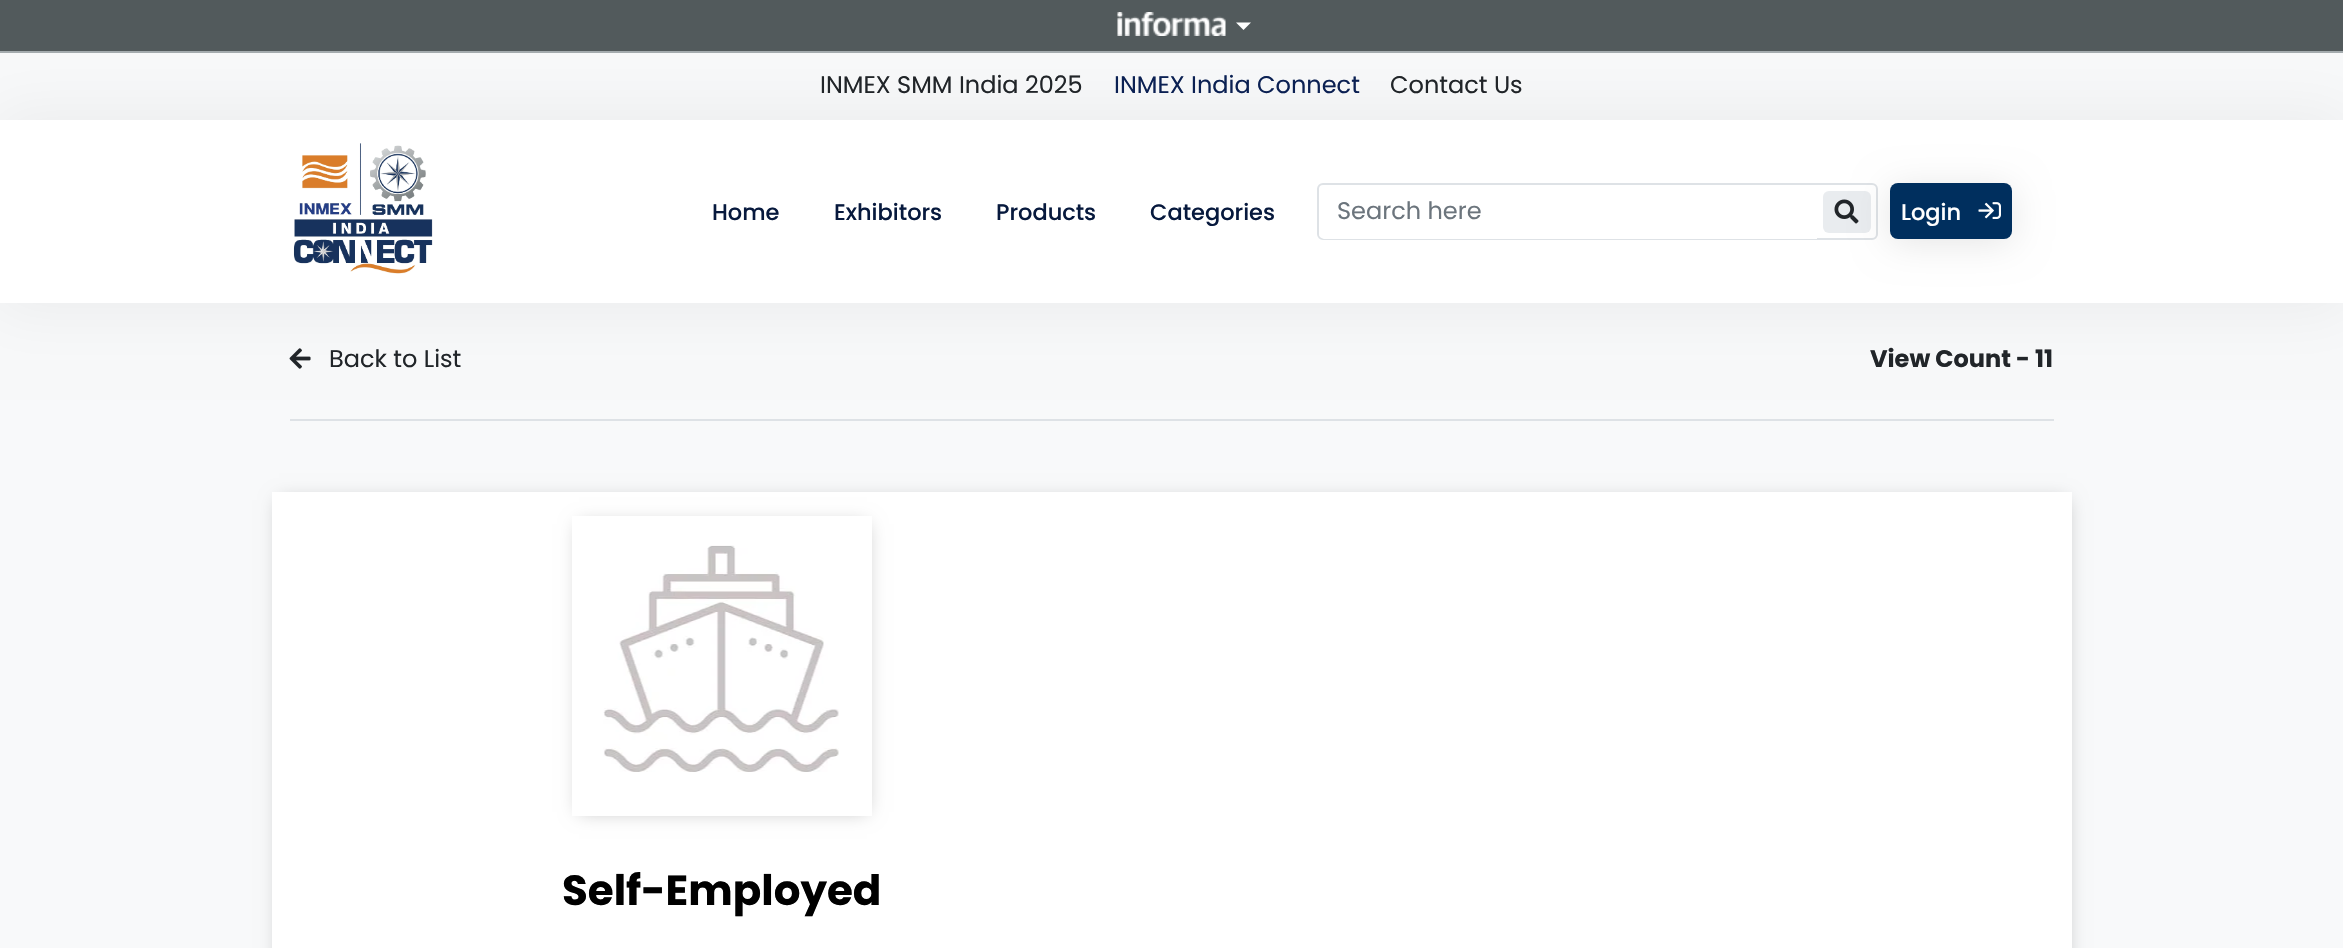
static SkFont makeFont(const char* family, int weight, float size, bool italic = false) {
  SkFontStyle style(weight, SkFontStyle::kNormal_Width,
    italic ? SkFontStyle::kItalic_Slant : SkFontStyle::kUpright_Slant);
  SkFont result(fontMgr->matchFamilyStyle(family, style), size);
  result.setSubpixel(true);
  return result;
}

static void text(SkCanvas* c, const char* s, float x, float y, const SkFont& font, SkColor color) {
  SkPaint ink(SkColor4f::FromColor(color));
  ink.setAntiAlias(true);
  c->drawString(s, x, y, font, ink);
}

static void box(SkCanvas* c, float l, float t, float r, float b, SkColor color) {
  SkPaint ink(SkColor4f::FromColor(color));
  ink.setAntiAlias(true);
  c->drawRect(SkRect::MakeLTRB(l, t, r, b), ink);
}

static void roundBox(SkCanvas* c, float l, float t, float r, float b, float radius, SkColor color) {
  SkPaint ink(SkColor4f::FromColor(color));
  ink.setAntiAlias(true);
  c->drawRoundRect(SkRect::MakeLTRB(l, t, r, b), radius, radius, ink);
}

static void picture(SkCanvas* c, const char* path, float l, float t, float r, float b) {
  auto image = SkImages::DeferredFromEncodedData(SkData::MakeFromFileName(path));
  c->drawImageRect(image, SkRect::MakeLTRB(l, t, r, b), SkSamplingOptions());
}

void draw(SkCanvas* c) {
  SkPaint paint;
  paint.setAntiAlias(true);
  c->clear(0xfff8f9fa);
  box(c, 0, 0, 2343, 51, 0xff525a5c);
  box(c, 0, 51, 2343, 53, 0xffa5acaf);
  picture(c, "img_01.png", 1117, 12, 1226, 36);
  paint.setColor(0xffffffff);
  c->drawPath(SkPathBuilder().moveTo(1236, 22.5f).lineTo(1251, 22.5f).lineTo(1243.5f, 30).close().detach(), paint);
  SkFont face1 = makeFont("Poppins", 400, 24);
  text(c, "INMEX SMM India 2025", 820, 93, face1, 0xff212529);
  text(c, "INMEX India Connect", 1114, 93, face1, 0xff0b2154);
  text(c, "Contact Us", 1390, 93, face1, 0xff212529);
  picture(c, "img_05.png", 289, 348, 311, 369);
  paint.setColor(0x0d000000);
  paint.setMaskFilter(SkMaskFilter::MakeBlur(kNormal_SkBlurStyle, 30));
  c->drawRect(SkRect::MakeLTRB(-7, 113, 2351, 311), paint);
  paint.setMaskFilter(nullptr);
  box(c, 0, 120, 2343, 303, 0xffffffff);
  picture(c, "img_02.png", 293, 143, 433, 274);
  SkFont face2 = makeFont("Poppins", 500, 22.5f);
  text(c, "Home", 712, 220, face2, 0xff07193d);
  text(c, "Exhibitors", 834, 220, face2, 0xff07193d);
  text(c, "Products", 996, 220, face2, 0xff07193d);
  text(c, "Categories", 1150, 220, face2, 0xff07193d);
  paint.setStyle(SkPaint::kStroke_Style);
  paint.setStrokeWidth(2);
  paint.setColor(0xffdee2e6);
  c->drawRoundRect(SkRect::MakeLTRB(1318, 184, 1877, 239), 5, 5, paint);
  paint.setStyle(SkPaint::kFill_Style);
  paint.setColor(0xffffffff);
  c->drawPath(SkPathBuilder().moveTo(1325, 185).lineTo(1817, 185).lineTo(1817, 239).lineTo(1325, 239).cubicTo(1321.5f, 239, 1319, 236.5f, 1319, 233).lineTo(1319, 191).cubicTo(1319, 187.5f, 1321.5f, 185, 1325, 185).close().detach(), paint);
  text(c, "Search here", 1337, 219, face1, 0xff6c757d);
  roundBox(c, 1823, 191, 1871, 233, 6, 0xffe9ecef);
  picture(c, "img_03.png", 1834, 199, 1859, 224);
  paint.setColor(0x1a000000);
  paint.setMaskFilter(SkMaskFilter::MakeBlur(kNormal_SkBlurStyle, 18));
  c->drawRoundRect(SkRect::MakeLTRB(1890, 188, 2012, 243), 8, 8, paint);
  paint.setMaskFilter(nullptr);
  roundBox(c, 1890, 183, 2012, 239, 8, 0xff002f5e);
  text(c, "Login", 1901, 220, face2, 0xffffffff);
  picture(c, "img_04.png", 1978, 202, 2001, 219);
  box(c, 290, 419, 2054, 421, 0xffdee2e6);
  text(c, "Back to List", 329, 367, face1, 0xff212529);
  SkFont face3 = makeFont("Poppins", 700, 24);
  text(c, "View Count - 11", 1870, 367, face3, 0xff212529);
  paint.setColor(0x40000000);
  paint.setMaskFilter(SkMaskFilter::MakeBlur(kNormal_SkBlurStyle, 9));
  c->drawRect(SkRect::MakeLTRB(279, 500, 2067, 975), paint);
  paint.setMaskFilter(nullptr);
  box(c, 272, 492, 2072, 948, 0xffffffff);
  paint.setMaskFilter(SkMaskFilter::MakeBlur(kNormal_SkBlurStyle, 9));
  c->drawRect(SkRect::MakeLTRB(579, 524, 867, 812), paint);
  paint.setMaskFilter(nullptr);
  box(c, 572, 516, 872, 816, 0xffffffff);
  picture(c, "img_06.png", 603, 545, 839, 772);
  SkFont face4 = makeFont("Poppins", 700, 42);
  text(c, "Self-Employed", 562, 905, face4, 0xff000000);
}
